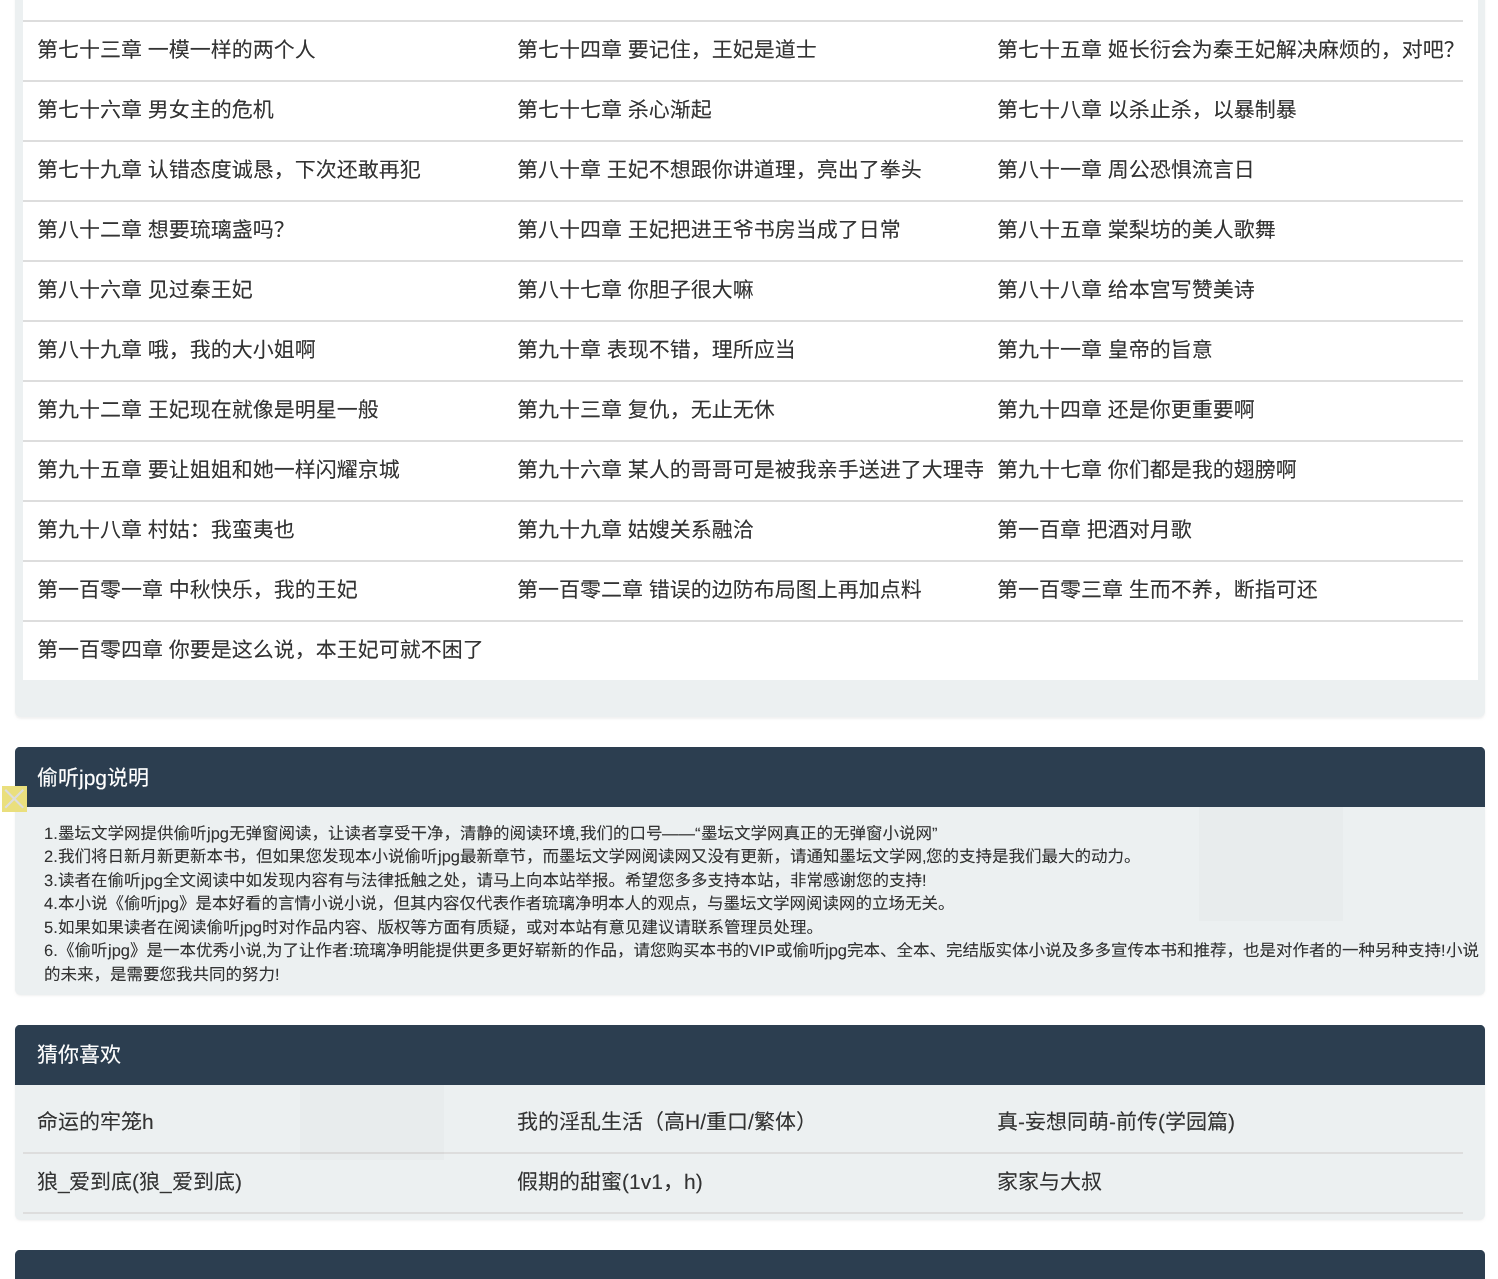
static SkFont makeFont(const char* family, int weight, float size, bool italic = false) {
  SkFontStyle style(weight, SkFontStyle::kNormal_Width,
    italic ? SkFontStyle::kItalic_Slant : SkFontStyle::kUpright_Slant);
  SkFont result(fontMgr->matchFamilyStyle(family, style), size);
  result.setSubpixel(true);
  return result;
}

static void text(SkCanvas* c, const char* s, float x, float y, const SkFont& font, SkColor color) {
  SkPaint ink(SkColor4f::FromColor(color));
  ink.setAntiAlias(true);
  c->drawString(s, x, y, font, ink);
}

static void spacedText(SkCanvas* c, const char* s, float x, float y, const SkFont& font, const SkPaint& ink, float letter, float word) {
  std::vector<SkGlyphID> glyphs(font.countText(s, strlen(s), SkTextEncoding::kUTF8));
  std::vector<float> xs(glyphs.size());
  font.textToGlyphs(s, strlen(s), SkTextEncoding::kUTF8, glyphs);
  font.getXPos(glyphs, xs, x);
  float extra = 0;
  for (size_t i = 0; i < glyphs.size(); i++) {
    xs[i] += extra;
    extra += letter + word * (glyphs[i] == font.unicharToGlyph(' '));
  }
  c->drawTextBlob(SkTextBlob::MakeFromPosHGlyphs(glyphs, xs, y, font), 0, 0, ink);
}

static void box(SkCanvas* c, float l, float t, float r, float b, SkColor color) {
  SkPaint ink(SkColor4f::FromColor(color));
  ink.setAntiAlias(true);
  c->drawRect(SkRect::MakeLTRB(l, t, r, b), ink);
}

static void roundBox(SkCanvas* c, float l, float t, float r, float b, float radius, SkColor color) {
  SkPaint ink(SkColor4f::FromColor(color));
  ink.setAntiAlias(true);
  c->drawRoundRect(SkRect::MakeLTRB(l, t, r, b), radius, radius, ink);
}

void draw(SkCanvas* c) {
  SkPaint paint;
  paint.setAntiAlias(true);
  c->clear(0xffffffff);
  paint.setColor(0x0d000000);
  paint.setMaskFilter(SkMaskFilter::MakeBlur(kNormal_SkBlurStyle, 1));
  c->drawRoundRect(SkRect::MakeLTRB(15, 749, 1485, 996), 6, 6, paint);
  paint.setMaskFilter(nullptr);
  roundBox(c, 15, 747, 1485, 995, 6, 0xffecf0f1);
  paint.setColor(0xff2c3e50);
  c->drawPath(SkPathBuilder().moveTo(20, 747).lineTo(1480, 747).cubicTo(1483, 747, 1485, 749, 1485, 752).lineTo(1485, 807).lineTo(15, 807).lineTo(15, 752).cubicTo(15, 749, 17, 747, 20, 747).close().detach(), paint);
  box(c, 2, 786, 27, 812, 0xffeadf7d);
  paint.setColor(0xffdddddd);
  c->drawPath(SkPathBuilder().moveTo(6, 789).lineTo(24, 807).lineTo(22.5f, 808.5f).lineTo(4.5f, 790.5f).close().detach(), paint);
  c->drawPath(SkPathBuilder().moveTo(4.5f, 807).lineTo(22.5f, 789).lineTo(24, 790.5f).lineTo(6, 808.5f).close().detach(), paint);
  paint.setColor(0x0d000000);
  paint.setMaskFilter(SkMaskFilter::MakeBlur(kNormal_SkBlurStyle, 1));
  c->drawRoundRect(SkRect::MakeLTRB(15, -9, 1485, 719), 6, 6, paint);
  paint.setMaskFilter(nullptr);
  roundBox(c, 15, -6, 1485, 717, 6, 0xffecf0f1);
  box(c, 23, 0, 1478, 680, 0xffffffff);
  box(c, 23, 20, 1463, 22, 0xffdddddd);
  box(c, 23, 80, 1463, 82, 0xffdddddd);
  SkFont face1 = makeFont("Noto Sans CJK SC", 400, 21);
  paint.setColor(0xff333333);
  spacedText(c, "第七十三章 一模一样的两个人", 37, 57, face1, paint, 0, 1);
  spacedText(c, "第七十四章 要记住，王妃是道士", 517, 57, face1, paint, 0, 1);
  spacedText(c, "第七十五章 姬长衍会为秦王妃解决麻烦的，对吧？", 997, 57, face1, paint, 0, 1);
  box(c, 23, 140, 1463, 142, 0xffdddddd);
  spacedText(c, "第七十六章 男女主的危机", 37, 117, face1, paint, 0, 1);
  spacedText(c, "第七十七章 杀心渐起", 517, 117, face1, paint, 0, 1);
  spacedText(c, "第七十八章 以杀止杀，以暴制暴", 997, 117, face1, paint, 0, 1);
  box(c, 23, 200, 1463, 202, 0xffdddddd);
  spacedText(c, "第七十九章 认错态度诚恳，下次还敢再犯", 37, 177, face1, paint, 0, 1);
  spacedText(c, "第八十章 王妃不想跟你讲道理，亮出了拳头", 517, 177, face1, paint, 0, 1);
  spacedText(c, "第八十一章 周公恐惧流言日", 997, 177, face1, paint, 0, 1);
  box(c, 23, 260, 1463, 262, 0xffdddddd);
  spacedText(c, "第八十二章 想要琉璃盏吗？", 37, 237, face1, paint, 0, 1);
  spacedText(c, "第八十四章 王妃把进王爷书房当成了日常", 517, 237, face1, paint, 0, 1);
  spacedText(c, "第八十五章 棠梨坊的美人歌舞", 997, 237, face1, paint, 0, 1);
  box(c, 23, 320, 1463, 322, 0xffdddddd);
  spacedText(c, "第八十六章 见过秦王妃", 37, 297, face1, paint, 0, 1);
  spacedText(c, "第八十七章 你胆子很大嘛", 517, 297, face1, paint, 0, 1);
  spacedText(c, "第八十八章 给本宫写赞美诗", 997, 297, face1, paint, 0, 1);
  box(c, 23, 380, 1463, 382, 0xffdddddd);
  spacedText(c, "第八十九章 哦，我的大小姐啊", 37, 357, face1, paint, 0, 1);
  spacedText(c, "第九十章 表现不错，理所应当", 517, 357, face1, paint, 0, 1);
  spacedText(c, "第九十一章 皇帝的旨意", 997, 357, face1, paint, 0, 1);
  box(c, 23, 440, 1463, 442, 0xffdddddd);
  spacedText(c, "第九十二章 王妃现在就像是明星一般", 37, 417, face1, paint, 0, 1);
  spacedText(c, "第九十三章 复仇，无止无休", 517, 417, face1, paint, 0, 1);
  spacedText(c, "第九十四章 还是你更重要啊", 997, 417, face1, paint, 0, 1);
  box(c, 23, 500, 1463, 502, 0xffdddddd);
  spacedText(c, "第九十五章 要让姐姐和她一样闪耀京城", 37, 477, face1, paint, 0, 1);
  c->save();
  c->clipRect(SkRect::MakeLTRB(503, 440, 983, 500));
  spacedText(c, "第九十六章 某人的哥哥可是被我亲手送进了大理寺", 517, 477, face1, paint, 0, 1);
  c->restore();
  spacedText(c, "第九十七章 你们都是我的翅膀啊", 997, 477, face1, paint, 0, 1);
  box(c, 23, 560, 1463, 562, 0xffdddddd);
  spacedText(c, "第九十八章 村姑：我蛮夷也", 37, 537, face1, paint, 0, 1);
  spacedText(c, "第九十九章 姑嫂关系融洽", 517, 537, face1, paint, 0, 1);
  spacedText(c, "第一百章 把酒对月歌", 997, 537, face1, paint, 0, 1);
  box(c, 23, 620, 1463, 622, 0xffdddddd);
  spacedText(c, "第一百零一章 中秋快乐，我的王妃", 37, 597, face1, paint, 0, 1);
  spacedText(c, "第一百零二章 错误的边防布局图上再加点料", 517, 597, face1, paint, 0, 1);
  spacedText(c, "第一百零三章 生而不养，断指可还", 997, 597, face1, paint, 0, 1);
  spacedText(c, "第一百零四章 你要是这么说，本王妃可就不困了", 37, 657, face1, paint, 0, 1);
  box(c, 1199, 807, 1343, 921, 0xffe8eced);
  text(c, "偷听", 37, 785, face1, 0xffffffff);
  SkFont face2 = makeFont("Liberation Sans", 400, 21);
  text(c, "jpg", 79, 785, face2, 0xffffffff);
  text(c, "说明", 107, 785, face1, 0xffffffff);
  SkFont face3 = makeFont("Liberation Sans", 400, 16.5f);
  text(c, "1.", 44, 839, face3, 0xff333333);
  SkFont face4 = makeFont("Noto Sans CJK SC", 400, 16.5f);
  text(c, "墨坛文学网提供偷听", 58, 839, face4, 0xff333333);
  text(c, "jpg", 207, 839, face3, 0xff333333);
  text(c, "无弹窗阅读，让读者享受干净，清静的阅读环境", 229, 839, face4, 0xff333333);
  text(c, "我们的口号", 580, 839, face4, 0xff333333);
  text(c, "——“", 662, 839, face3, 0xff333333);
  text(c, "墨坛文学网真正的无弹窗小说网", 701, 839, face4, 0xff333333);
  text(c, "”", 932, 839, face3, 0xff333333);
  text(c, ",", 575, 839, face3, 0xff333333);
  text(c, "2.", 44, 862, face3, 0xff333333);
  text(c, "我们将日新月新更新本书，但如果您发现本小说偷听", 58, 862, face4, 0xff333333);
  text(c, "jpg", 438, 862, face3, 0xff333333);
  text(c, "最新章节，而墨坛文学网阅读网又没有更新，请通知墨坛文学网", 460, 862, face4, 0xff333333);
  text(c, ",", 922, 862, face3, 0xff333333);
  text(c, "您的支持是我们最大的动力。", 926, 862, face4, 0xff333333);
  text(c, "3.", 44, 886, face3, 0xff333333);
  text(c, "读者在偷听", 58, 886, face4, 0xff333333);
  text(c, "jpg", 141, 886, face3, 0xff333333);
  text(c, "全文阅读中如发现内容有与法律抵触之处，请马上向本站举报。希望您多多支持本站，非常感谢您的支持", 163, 886, face4, 0xff333333);
  text(c, "!", 922, 886, face3, 0xff333333);
  text(c, "4.", 44, 909, face3, 0xff333333);
  text(c, "本小说《偷听", 58, 909, face4, 0xff333333);
  text(c, "jpg", 157, 909, face3, 0xff333333);
  text(c, "》是本好看的言情小说小说，但其内容仅代表作者琉璃净明本人的观点，与墨坛文学网阅读网的立场无关。", 179, 909, face4, 0xff333333);
  text(c, "5.", 44, 933, face3, 0xff333333);
  text(c, "如果如果读者在阅读偷听", 58, 933, face4, 0xff333333);
  text(c, "jpg", 240, 933, face3, 0xff333333);
  text(c, "时对作品内容、版权等方面有质疑，或对本站有意见建议请联系管理员处理。", 262, 933, face4, 0xff333333);
  text(c, "6.", 44, 956, face3, 0xff333333);
  text(c, "《偷听", 58, 956, face4, 0xff333333);
  text(c, "jpg", 108, 956, face3, 0xff333333);
  text(c, "》是一本优秀小说", 130, 956, face4, 0xff333333);
  text(c, "为了让作者", 266, 956, face4, 0xff333333);
  text(c, ":", 349, 956, face3, 0xff333333);
  text(c, "琉璃净明能提供更多更好崭新的作品，请您购买本书的", 353, 956, face4, 0xff333333);
  text(c, "VIP", 749, 956, face3, 0xff333333);
  text(c, "或偷听", 776, 956, face4, 0xff333333);
  text(c, "jpg", 825, 956, face3, 0xff333333);
  text(c, "完本、全本、完结版实体小说及多多宣传本书和推荐，也是对作者的一种另种支持", 847, 956, face4, 0xff333333);
  text(c, "!", 1441, 956, face3, 0xff333333);
  text(c, "小说", 1446, 956, face4, 0xff333333);
  text(c, ",", 262, 956, face3, 0xff333333);
  text(c, "的未来，是需要您我共同的努力", 44, 980, face4, 0xff333333);
  text(c, "!", 275, 980, face3, 0xff333333);
  paint.setColor(0x0d000000);
  paint.setMaskFilter(SkMaskFilter::MakeBlur(kNormal_SkBlurStyle, 1));
  c->drawRoundRect(SkRect::MakeLTRB(15, 1026, 1485, 1221), 6, 6, paint);
  paint.setMaskFilter(nullptr);
  roundBox(c, 15, 1025, 1485, 1220, 6, 0xffecf0f1);
  box(c, 300, 1085, 444, 1160, 0xffe8eced);
  paint.setColor(0xff2c3e50);
  c->drawPath(SkPathBuilder().moveTo(20, 1025).lineTo(1480, 1025).cubicTo(1483, 1025, 1485, 1027, 1485, 1030).lineTo(1485, 1085).lineTo(15, 1085).lineTo(15, 1030).cubicTo(15, 1027, 17, 1025, 20, 1025).close().detach(), paint);
  text(c, "猜你喜欢", 37, 1062, face1, 0xffffffff);
  box(c, 23, 1152, 1463, 1154, 0xffdddddd);
  box(c, 300, 1152, 444, 1154, 0xffd9d9d9);
  text(c, "命运的牢笼", 37, 1129, face1, 0xff333333);
  text(c, "h", 142, 1129, face2, 0xff333333);
  text(c, "我的淫乱生活（高", 517, 1129, face1, 0xff333333);
  text(c, "H/", 685, 1129, face2, 0xff333333);
  text(c, "重口", 706, 1129, face1, 0xff333333);
  text(c, "/", 748, 1129, face2, 0xff333333);
  text(c, "繁体）", 754, 1129, face1, 0xff333333);
  text(c, "真", 997, 1129, face1, 0xff333333);
  text(c, "-", 1018, 1129, face2, 0xff333333);
  text(c, "妄想同萌", 1025, 1129, face1, 0xff333333);
  text(c, "-", 1109, 1129, face2, 0xff333333);
  text(c, "前传", 1116, 1129, face1, 0xff333333);
  text(c, "(", 1158, 1129, face2, 0xff333333);
  text(c, "学园篇", 1165, 1129, face1, 0xff333333);
  text(c, ")", 1228, 1129, face2, 0xff333333);
  box(c, 23, 1212, 1463, 1214, 0xffdddddd);
  text(c, "狼", 37, 1189, face1, 0xff333333);
  text(c, "_", 58, 1189, face2, 0xff333333);
  text(c, "爱到底", 69, 1189, face1, 0xff333333);
  text(c, "(", 132, 1189, face2, 0xff333333);
  text(c, "狼", 139, 1189, face1, 0xff333333);
  text(c, "_", 160, 1189, face2, 0xff333333);
  text(c, "爱到底", 172, 1189, face1, 0xff333333);
  text(c, ")", 235, 1189, face2, 0xff333333);
  text(c, "假期的甜蜜", 517, 1189, face1, 0xff333333);
  text(c, "(1v1", 622, 1189, face2, 0xff333333);
  text(c, "，", 663, 1189, face1, 0xff333333);
  text(c, "h)", 684, 1189, face2, 0xff333333);
  text(c, "家家与大叔", 997, 1189, face1, 0xff333333);
  c->drawPath(SkPathBuilder().moveTo(20, 1250).lineTo(1480, 1250).cubicTo(1483, 1250, 1485, 1252, 1485, 1255).lineTo(1485, 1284).lineTo(15, 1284).lineTo(15, 1255).cubicTo(15, 1252, 17, 1250, 20, 1250).close().detach(), paint);
}
